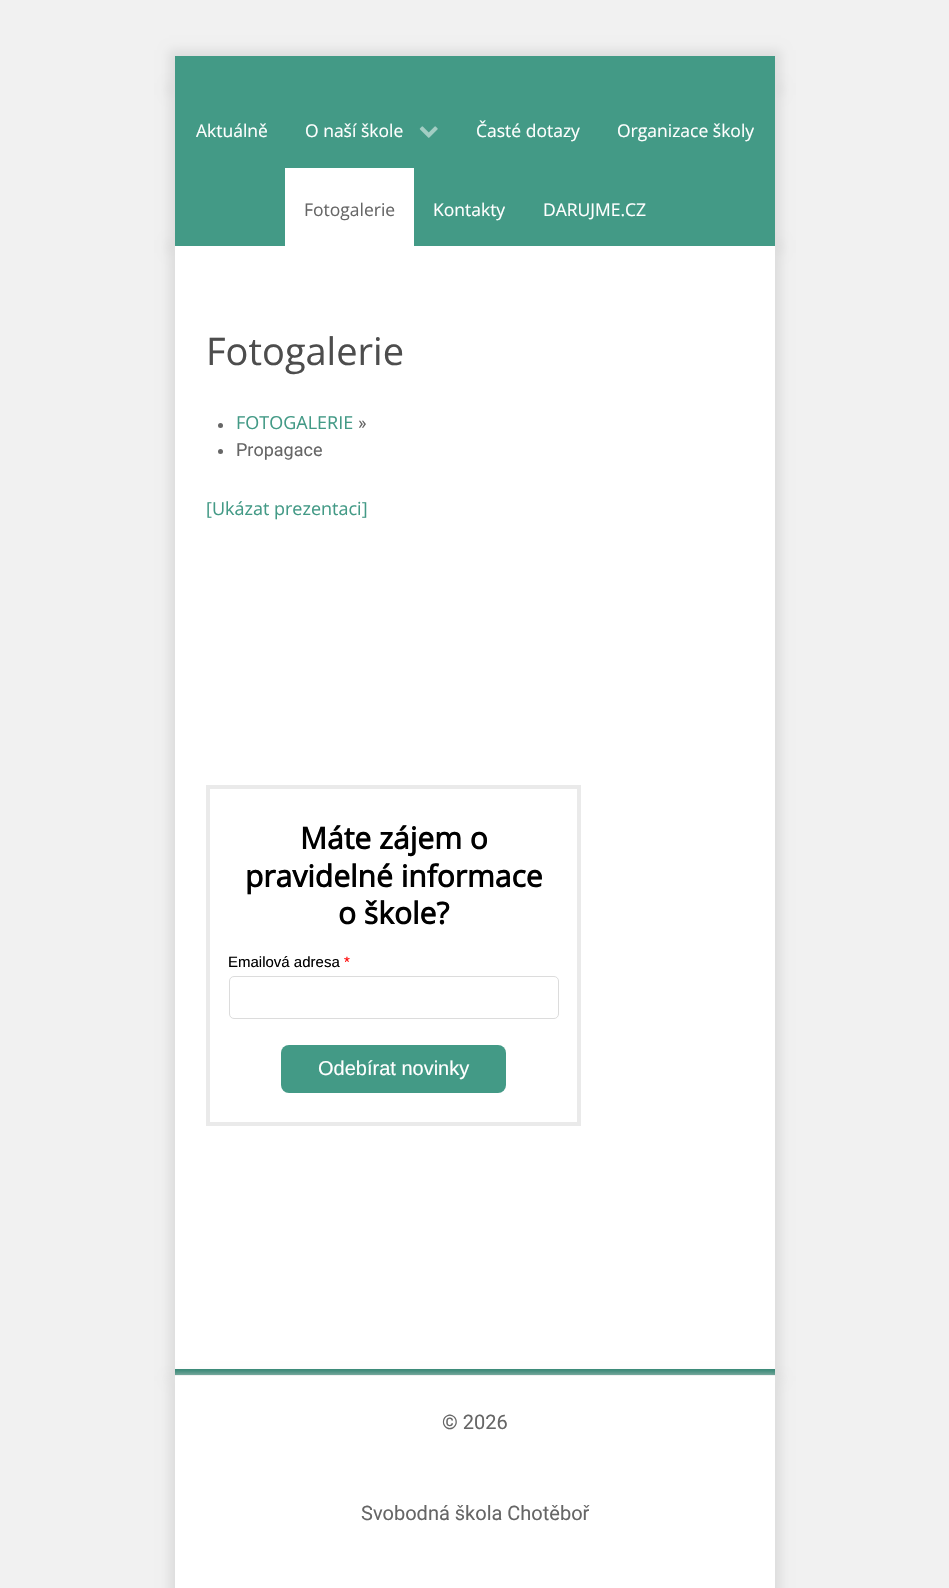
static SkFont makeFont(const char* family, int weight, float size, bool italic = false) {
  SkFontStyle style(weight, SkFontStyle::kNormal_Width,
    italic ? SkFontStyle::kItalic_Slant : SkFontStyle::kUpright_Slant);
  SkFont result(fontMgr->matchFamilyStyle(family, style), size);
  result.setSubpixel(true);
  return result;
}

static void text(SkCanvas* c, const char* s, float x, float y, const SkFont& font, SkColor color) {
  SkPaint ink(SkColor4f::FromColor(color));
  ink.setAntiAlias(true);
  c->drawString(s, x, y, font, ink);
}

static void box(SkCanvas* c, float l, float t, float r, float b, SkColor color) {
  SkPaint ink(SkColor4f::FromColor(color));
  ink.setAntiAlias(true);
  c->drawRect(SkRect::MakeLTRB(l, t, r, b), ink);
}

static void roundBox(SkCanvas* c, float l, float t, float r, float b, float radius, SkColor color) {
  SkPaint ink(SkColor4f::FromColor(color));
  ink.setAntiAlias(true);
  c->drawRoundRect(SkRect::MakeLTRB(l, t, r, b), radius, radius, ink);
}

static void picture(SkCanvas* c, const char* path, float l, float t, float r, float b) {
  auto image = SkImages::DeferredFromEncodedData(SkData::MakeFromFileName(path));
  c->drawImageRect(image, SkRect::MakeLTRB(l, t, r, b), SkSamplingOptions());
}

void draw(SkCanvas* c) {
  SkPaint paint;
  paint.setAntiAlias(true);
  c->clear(0xfff1f1f1);
  paint.setColor(0xffdddddd);
  paint.setMaskFilter(SkMaskFilter::MakeBlur(kNormal_SkBlurStyle, 5));
  c->drawRect(SkRect::MakeLTRB(169, 50, 781, 95), paint);
  paint.setMaskFilter(nullptr);
  paint.setMaskFilter(SkMaskFilter::MakeBlur(kNormal_SkBlurStyle, 5));
  c->drawRect(SkRect::MakeLTRB(169, 83, 781, 253), paint);
  paint.setMaskFilter(nullptr);
  paint.setMaskFilter(SkMaskFilter::MakeBlur(kNormal_SkBlurStyle, 5));
  c->drawRect(SkRect::MakeLTRB(169, 240, 781, 1381), paint);
  paint.setMaskFilter(nullptr);
  box(c, 175, 56, 775, 246, 0xff439a86);
  SkFont face1 = makeFont("Open Sans", 400, 17.5f);
  text(c, "Aktuálně", 196, 137, face1, 0xffffffff);
  text(c, "O naší škole", 305, 137, face1, 0xffffffff);
  picture(c, "img_01.png", 419, 126, 438, 138);
  text(c, "Časté dotazy", 476, 137, face1, 0xffffffff);
  text(c, "Organizace školy", 617, 137, face1, 0xffffffff);
  box(c, 285, 168, 414, 246, 0xffffffff);
  text(c, "Fotogalerie", 304, 216, face1, 0xff666666);
  text(c, "Kontakty", 433, 216, face1, 0xffffffff);
  text(c, "DARUJME.CZ", 543, 216, face1, 0xffffffff);
  box(c, 175, 246, 775, 1369, 0xffffffff);
  box(c, 175, 1369, 775, 1375, 0xff2a816d);
  SkFont face2 = makeFont("Open Sans", 400, 38);
  text(c, "Fotogalerie", 206, 365, face2, 0xff4d4d4d);
  paint.setColor(0xff666666);
  c->drawCircle(220.5f, 425.5f, 2.5f, paint);
  SkFont face3 = makeFont("Open Sans", 400, 18);
  text(c, "FOTOGALERIE", 236, 429, face3, 0xff439a86);
  SkFont face4 = makeFont("Roboto", 400, 18);
  text(c, "»", 358, 429, face4, 0xff666666);
  c->drawCircle(220.5f, 451.5f, 2.5f, paint);
  text(c, "Propagace", 236, 456, face4, 0xff666666);
  text(c, "[Ukázat prezentaci]", 206, 515, face3, 0xff439a86);
  paint.setStyle(SkPaint::kStroke_Style);
  paint.setStrokeWidth(4);
  paint.setColor(0xffeaeaea);
  c->drawRect(SkRect::MakeLTRB(208, 787, 579, 1124), paint);
  SkFont face5 = makeFont("Open Sans", 700, 30);
  text(c, "Máte zájem o", 300, 849, face5, 0xff000000);
  text(c, "pravidelné informace", 245, 887, face5, 0xff000000);
  text(c, "o škole?", 338, 924, face5, 0xff000000);
  SkFont face6 = makeFont("Liberation Sans", 400, 15);
  text(c, "Emailová adresa", 228, 967, face6, 0xff000000);
  text(c, "*", 344, 967, face6, 0xffff0000);
  paint.setStrokeWidth(1);
  paint.setColor(0xffdcdcdc);
  c->drawRoundRect(SkRect::MakeLTRB(229.5f, 976.5f, 558.5f, 1018.5f), 4.5f, 4.5f, paint);
  roundBox(c, 281, 1045, 506, 1093, 8, 0xff439a86);
  SkFont face7 = makeFont("Liberation Sans", 400, 20);
  text(c, "Odebírat novinky", 318, 1075, face7, 0xffffffff);
  paint.setStyle(SkPaint::kFill_Style);
  paint.setColor(0xffdddddd);
  paint.setMaskFilter(SkMaskFilter::MakeBlur(kNormal_SkBlurStyle, 5));
  c->drawRect(SkRect::MakeLTRB(169, 1376, 781, 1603), paint);
  paint.setMaskFilter(nullptr);
  box(c, 175, 1376, 775, 1588, 0xffffffff);
  box(c, 175, 1375, 775, 1376, 0xfff2f2f2);
  SkFont face8 = makeFont("Roboto", 400, 20);
  text(c, "© 2026", 442, 1429, face8, 0xff666666);
  text(c, "Svobodná škola Chotěboř", 361, 1520, face8, 0xff666666);
}
